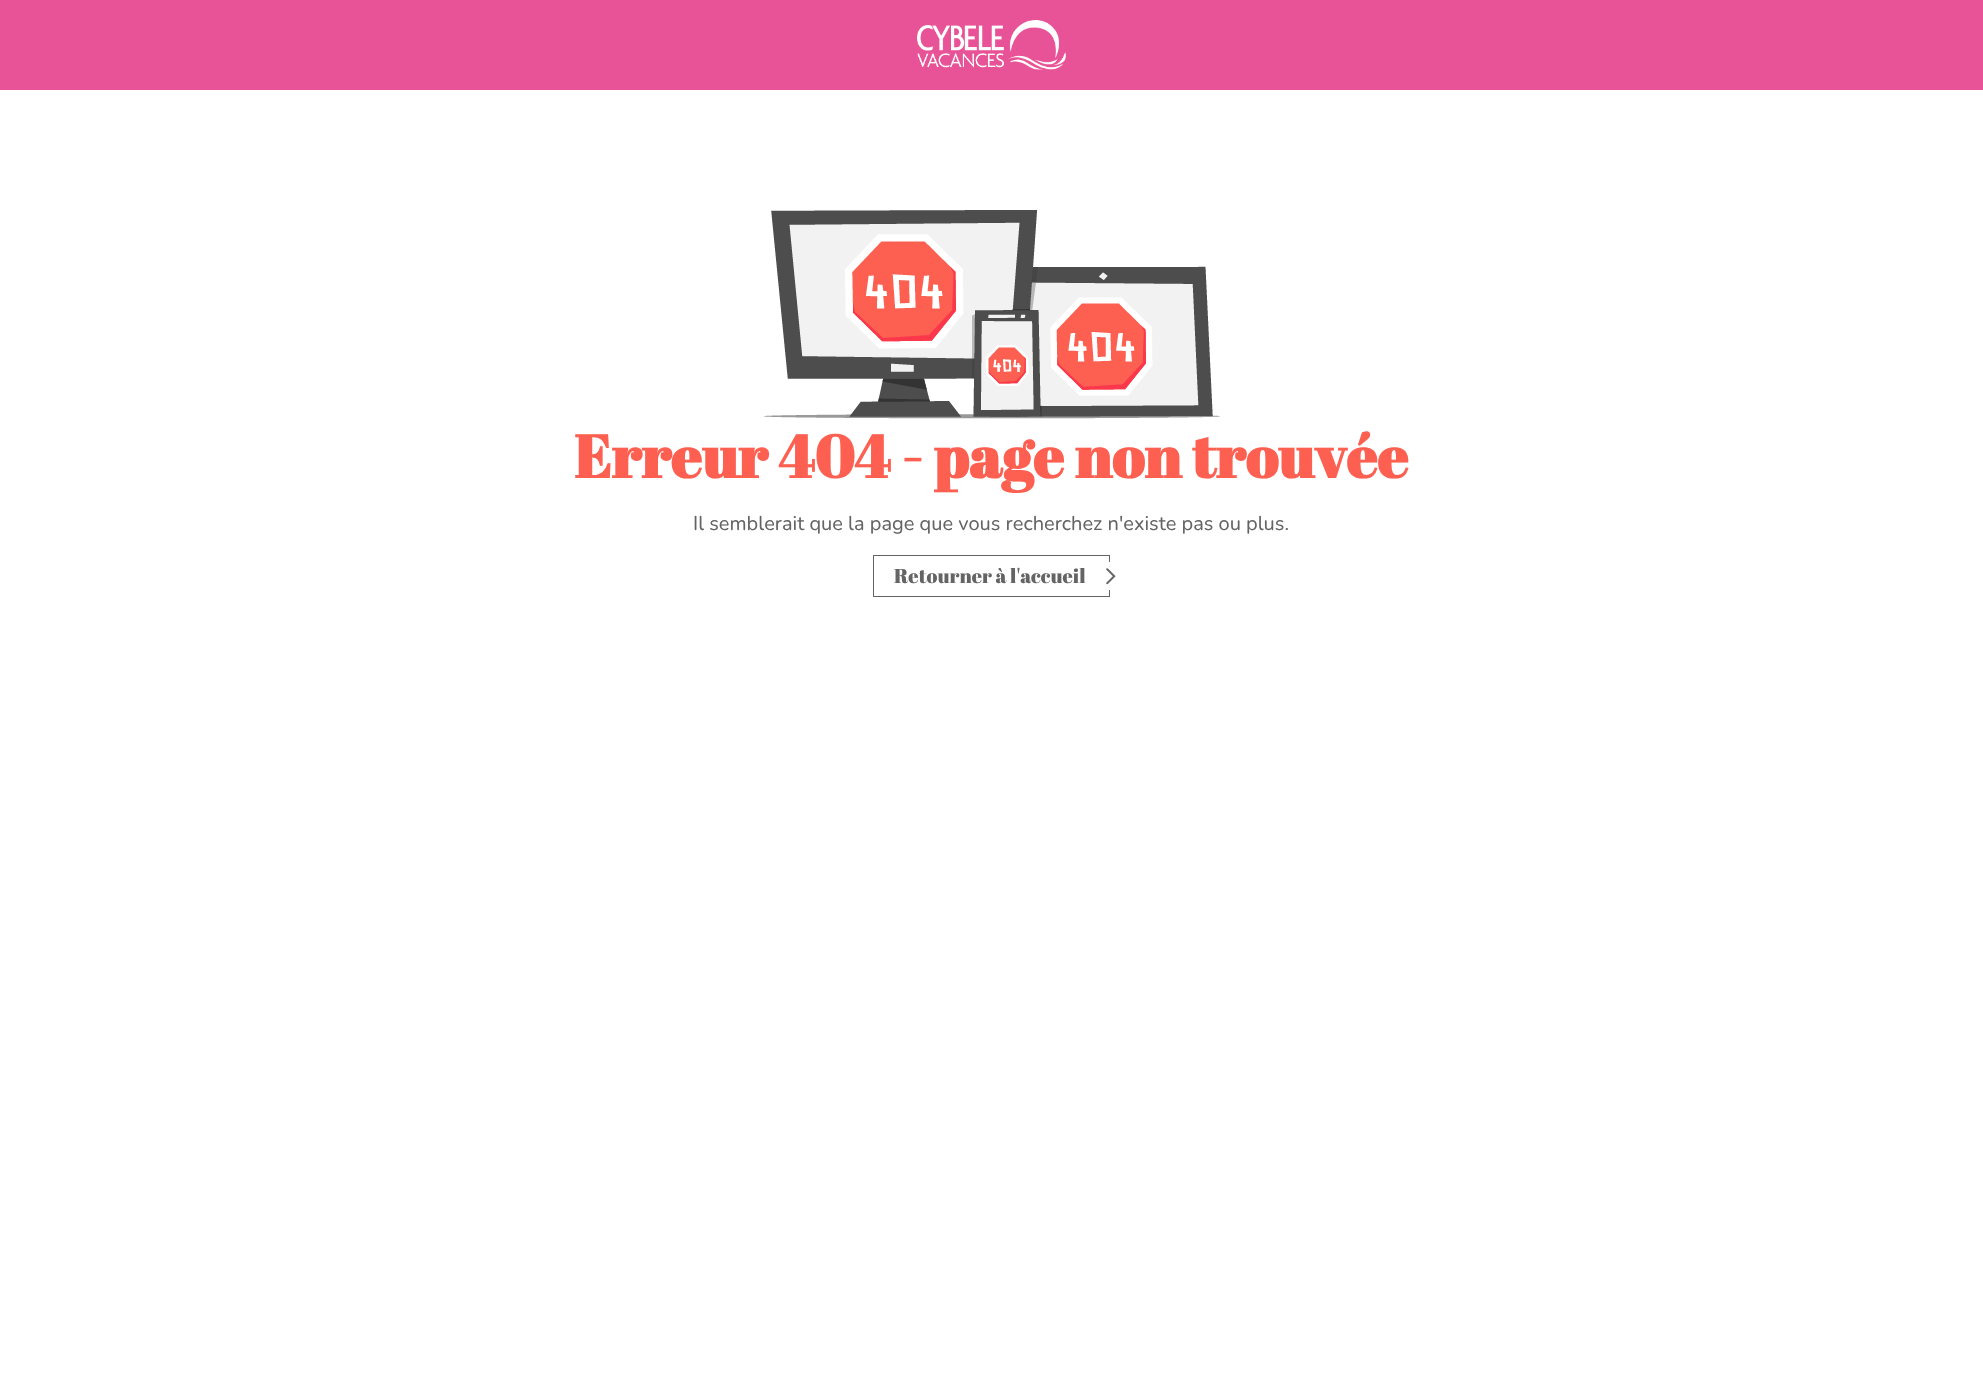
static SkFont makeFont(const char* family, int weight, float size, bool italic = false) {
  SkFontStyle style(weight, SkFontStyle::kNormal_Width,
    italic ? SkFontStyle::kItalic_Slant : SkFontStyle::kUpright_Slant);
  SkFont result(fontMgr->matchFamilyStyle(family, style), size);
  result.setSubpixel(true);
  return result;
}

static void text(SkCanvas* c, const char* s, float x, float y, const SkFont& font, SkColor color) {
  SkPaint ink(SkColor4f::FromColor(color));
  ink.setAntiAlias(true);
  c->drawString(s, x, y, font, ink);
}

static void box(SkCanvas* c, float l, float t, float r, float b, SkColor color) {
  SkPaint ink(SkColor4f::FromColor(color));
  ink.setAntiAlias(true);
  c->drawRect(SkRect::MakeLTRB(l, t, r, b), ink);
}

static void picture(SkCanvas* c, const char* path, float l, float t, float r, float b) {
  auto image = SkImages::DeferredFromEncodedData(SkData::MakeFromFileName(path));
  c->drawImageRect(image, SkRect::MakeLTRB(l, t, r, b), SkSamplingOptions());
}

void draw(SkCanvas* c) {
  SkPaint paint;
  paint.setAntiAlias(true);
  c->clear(0xffffffff);
  box(c, 0, 0, 1983, 90, 0xffe85296);
  picture(c, "img_01.png", 917, 20, 1066, 70);
  picture(c, "img_02.png", 764, 210, 1220, 419);
  SkFont face1 = makeFont("Abril Fatface", 700, 60);
  text(c, "Erreur 404 - page non trouvée", 574, 478, face1, 0xfffd6051);
  SkFont face2 = makeFont("Nunito", 400, 20);
  text(c, "Il semblerait que la page que vous recherchez n'existe pas ou plus.", 693, 530, face2, 0xff646464);
  paint.setStyle(SkPaint::kStroke_Style);
  paint.setStrokeWidth(1);
  paint.setColor(0xff646464);
  c->drawRect(SkRect::MakeLTRB(873.5f, 555.5f, 1109.5f, 596.5f), paint);
  SkFont face3 = makeFont("Abril Fatface", 400, 20);
  text(c, "Retourner à l'accueil", 894, 583, face3, 0xff646464);
  box(c, 1109, 562, 1110, 590, 0xffffffff);
  picture(c, "img_03.png", 1106, 568, 1116, 585);
}
